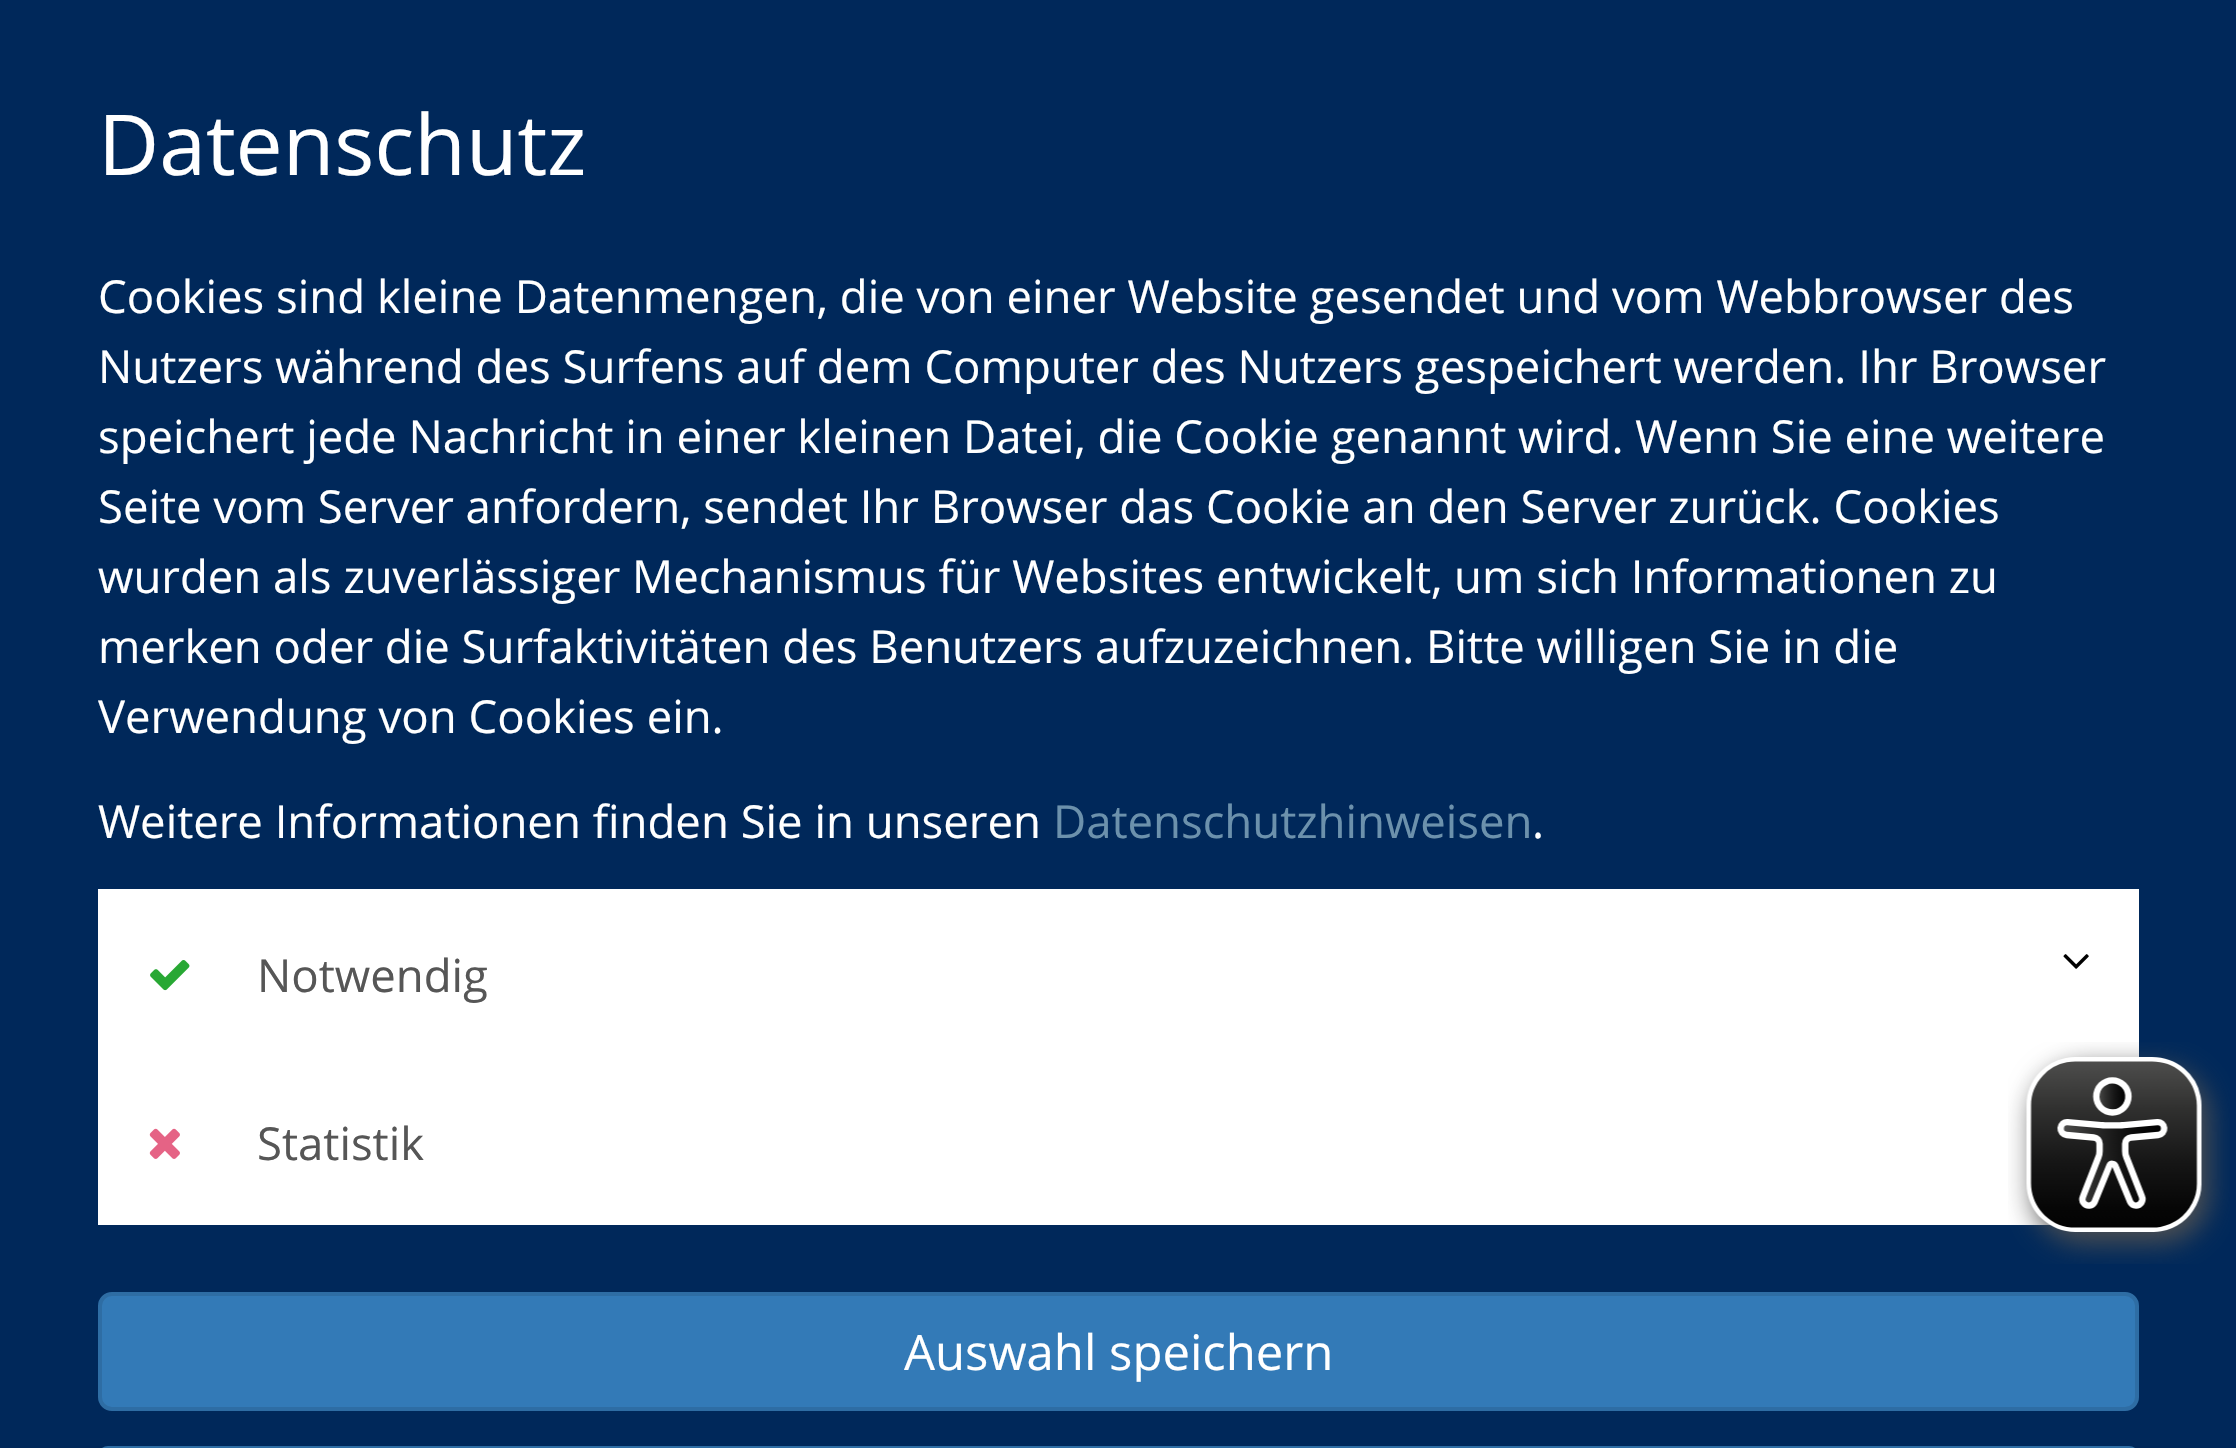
static SkFont makeFont(const char* family, int weight, float size, bool italic = false) {
  SkFontStyle style(weight, SkFontStyle::kNormal_Width,
    italic ? SkFontStyle::kItalic_Slant : SkFontStyle::kUpright_Slant);
  SkFont result(fontMgr->matchFamilyStyle(family, style), size);
  result.setSubpixel(true);
  return result;
}

static void text(SkCanvas* c, const char* s, float x, float y, const SkFont& font, SkColor color) {
  SkPaint ink(SkColor4f::FromColor(color));
  ink.setAntiAlias(true);
  c->drawString(s, x, y, font, ink);
}

static void box(SkCanvas* c, float l, float t, float r, float b, SkColor color) {
  SkPaint ink(SkColor4f::FromColor(color));
  ink.setAntiAlias(true);
  c->drawRect(SkRect::MakeLTRB(l, t, r, b), ink);
}

static void picture(SkCanvas* c, const char* path, float l, float t, float r, float b) {
  auto image = SkImages::DeferredFromEncodedData(SkData::MakeFromFileName(path));
  c->drawImageRect(image, SkRect::MakeLTRB(l, t, r, b), SkSamplingOptions());
}

void draw(SkCanvas* c) {
  SkPaint paint;
  paint.setAntiAlias(true);
  c->clear(0xff00285a);
  SkFont face1 = makeFont("Open Sans", 400, 84);
  text(c, "Datenschutz", 98, 175, face1, 0xffffffff);
  SkFont face2 = makeFont("Open Sans", 400, 45.5f);
  text(c, "Cookies sind kleine Datenmengen, die von einer Website gesendet und vom Webbrowser des", 98, 313, face2, 0xffffffff);
  text(c, "Nutzers während des Surfens auf dem Computer des Nutzers gespeichert werden. Ihr Browser", 98, 383, face2, 0xffffffff);
  text(c, "speichert jede Nachricht in einer kleinen Datei, die Cookie genannt wird. Wenn Sie eine weitere", 98, 453, face2, 0xffffffff);
  text(c, "Seite vom Server anfordern, sendet Ihr Browser das Cookie an den Server zurück. Cookies", 98, 523, face2, 0xffffffff);
  text(c, "wurden als zuverlässiger Mechanismus für Websites entwickelt, um sich Informationen zu", 98, 593, face2, 0xffffffff);
  text(c, "merken oder die Surfaktivitäten des Benutzers aufzuzeichnen. Bitte willigen Sie in die", 98, 663, face2, 0xffffffff);
  text(c, "Verwendung von Cookies ein.", 98, 733, face2, 0xffffffff);
  text(c, "Weitere Informationen finden Sie in unseren", 98, 838, face2, 0xffffffff);
  text(c, "Datenschutzhinweisen", 1053, 838, face2, 0xff6c91ac);
  text(c, ".", 1532, 838, face2, 0xffffffff);
  box(c, 98, 889, 2139, 1057, 0xffffffff);
  picture(c, "img_01.png", 150, 960, 190, 991);
  text(c, "Notwendig", 257, 992, face2, 0xff565656);
  picture(c, "img_02.png", 2063, 954, 2089, 969);
  box(c, 98, 1057, 2075, 1225, 0xffffffff);
  picture(c, "img_03.png", 149, 1128, 180, 1159);
  text(c, "Statistik", 257, 1160, face2, 0xff565656);
  paint.setColor(0xff337ab7);
  c->drawRoundRect(SkRect::MakeLTRB(100, 1294, 2137, 1409), 12, 12, paint);
  paint.setStyle(SkPaint::kStroke_Style);
  paint.setStrokeWidth(4);
  paint.setColor(0xff2e6da4);
  c->drawRoundRect(SkRect::MakeLTRB(100, 1294, 2137, 1409), 12, 12, paint);
  SkFont face3 = makeFont("Open Sans", 400, 49);
  text(c, "Auswahl speichern", 904, 1370, face3, 0xffffffff);
  c->drawRoundRect(SkRect::MakeLTRB(100, 1448, 2137, 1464), 12, 12, paint);
  picture(c, "img_04.png", 2008, 1042, 2230, 1264);
}
